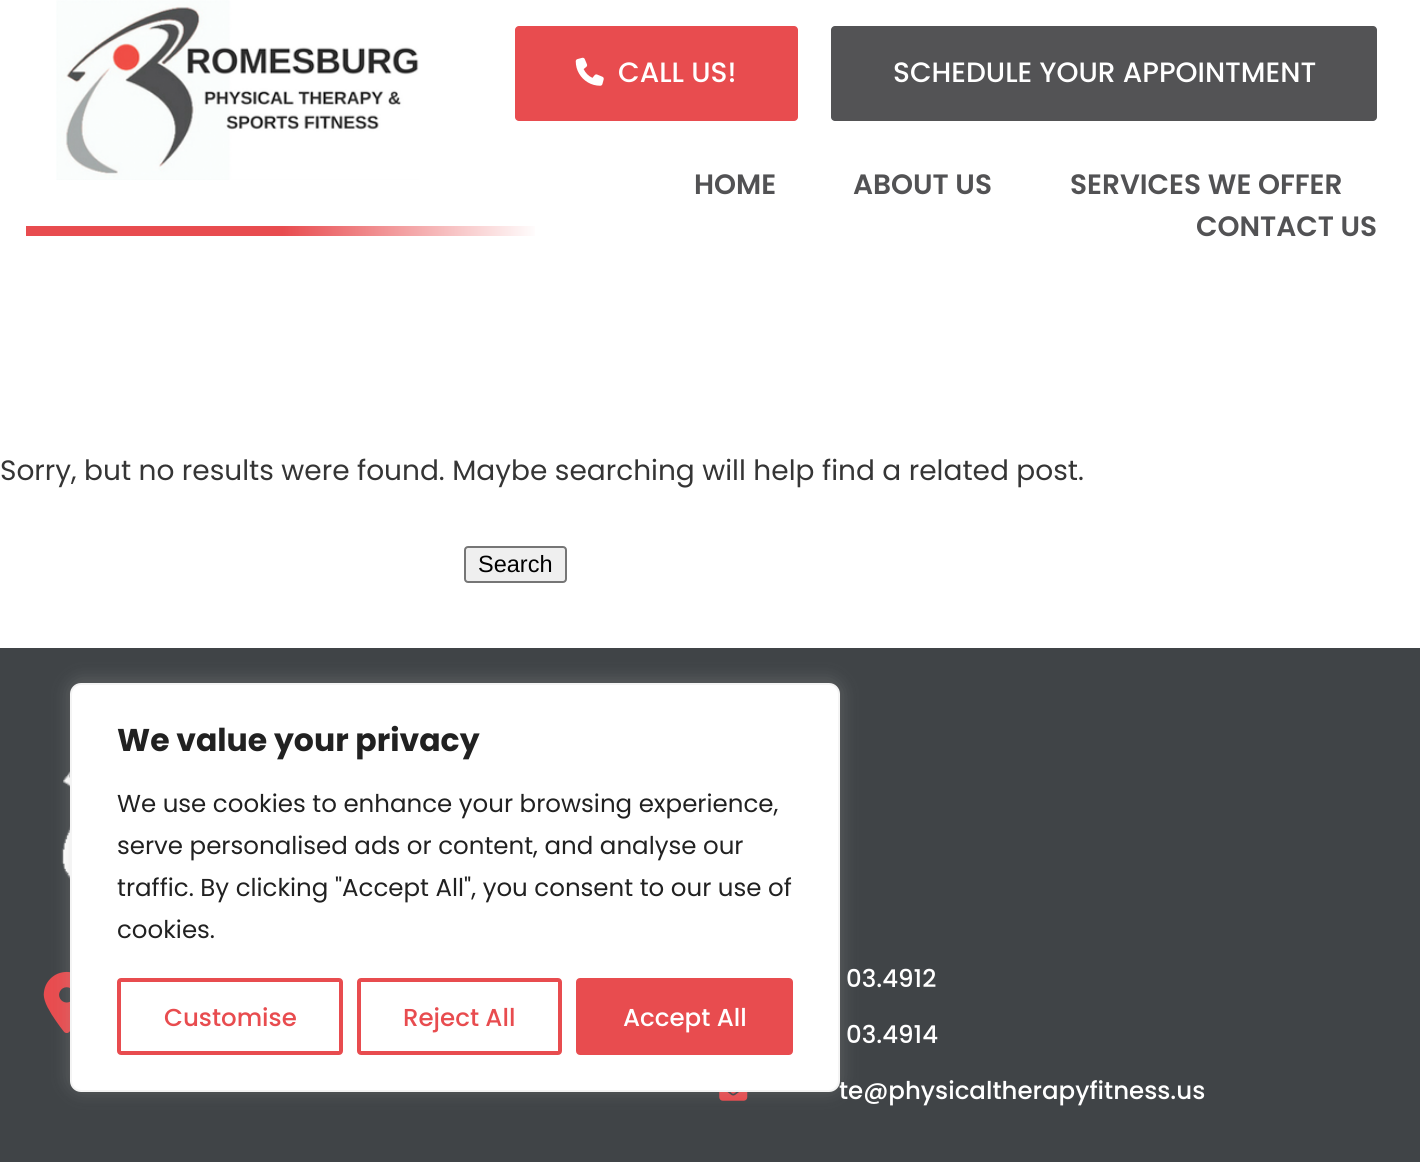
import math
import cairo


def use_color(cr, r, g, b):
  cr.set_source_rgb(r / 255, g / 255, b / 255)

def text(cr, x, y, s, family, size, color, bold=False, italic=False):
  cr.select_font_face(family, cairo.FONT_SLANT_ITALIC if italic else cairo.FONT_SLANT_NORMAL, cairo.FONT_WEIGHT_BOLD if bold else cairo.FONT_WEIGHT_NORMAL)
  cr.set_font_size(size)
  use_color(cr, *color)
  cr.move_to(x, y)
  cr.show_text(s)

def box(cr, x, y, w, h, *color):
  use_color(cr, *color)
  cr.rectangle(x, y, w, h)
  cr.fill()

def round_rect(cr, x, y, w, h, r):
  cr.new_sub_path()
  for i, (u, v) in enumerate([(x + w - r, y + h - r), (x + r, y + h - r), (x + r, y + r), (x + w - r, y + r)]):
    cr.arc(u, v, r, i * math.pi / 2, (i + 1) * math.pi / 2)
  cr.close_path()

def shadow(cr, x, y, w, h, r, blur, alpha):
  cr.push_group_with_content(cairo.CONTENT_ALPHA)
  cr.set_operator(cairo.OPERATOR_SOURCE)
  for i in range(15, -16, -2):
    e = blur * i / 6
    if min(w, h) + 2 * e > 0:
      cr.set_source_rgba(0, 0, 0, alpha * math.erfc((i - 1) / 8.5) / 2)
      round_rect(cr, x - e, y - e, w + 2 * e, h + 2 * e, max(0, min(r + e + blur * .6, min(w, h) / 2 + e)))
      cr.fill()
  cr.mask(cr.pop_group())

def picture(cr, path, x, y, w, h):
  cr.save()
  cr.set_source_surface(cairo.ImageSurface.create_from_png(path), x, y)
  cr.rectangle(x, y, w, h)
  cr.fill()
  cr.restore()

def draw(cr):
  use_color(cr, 255, 255, 255)
  cr.paint()
  gradient = cairo.LinearGradient(26, 231, 539, 231)
  gradient.add_color_stop_rgba(0, 0.91, 0.298, 0.31, 1)
  gradient.add_color_stop_rgba(0.5, 0.91, 0.298, 0.31, 1)
  gradient.add_color_stop_rgba(1, 1, 1, 1, 1)
  cr.set_source(gradient)
  cr.rectangle(26, 226, 509, 10)
  cr.fill()
  picture(cr, "img_01.png", 56, 0, 363, 180)
  use_color(cr, 232, 76, 79)
  round_rect(cr, 515, 26, 283, 95, 4)
  cr.fill()
  picture(cr, "img_02.png", 575, 57, 29, 29)
  use_color(cr, 83, 83, 85)
  round_rect(cr, 831, 26, 546, 95, 4)
  cr.fill()
  use_color(cr, 239, 239, 239)
  round_rect(cr, 465, 547, 101, 35, 3)
  cr.fill_preserve()
  use_color(cr, 118, 118, 118)
  cr.stroke()
  box(cr, 0, 648, 1420, 514, 64, 68, 71)
  picture(cr, "img_03.png", 61, 771, 9, 109)
  picture(cr, "img_04.png", 43, 971, 27, 62)
  picture(cr, "img_05.png", 719, 1092, 29, 9)
  use_color(cr, 172, 171, 171)
  shadow(cr, 70, 681, 770, 409, 11, 9, 0.3)
  use_color(cr, 255, 255, 255)
  round_rect(cr, 71, 684, 768, 407, 10)
  cr.fill_preserve()
  use_color(cr, 244, 244, 244)
  cr.stroke()
  round_rect(cr, 119, 980, 222, 73, 2)
  use_color(cr, 232, 76, 79)
  cr.set_line_width(4)
  cr.stroke()
  round_rect(cr, 359, 980, 201, 73, 2)
  cr.stroke()
  round_rect(cr, 578, 980, 213, 73, 2)
  cr.fill_preserve()
  cr.stroke()
  text(cr, 618, 82, "CALL US!", "Poppins Medium", 28, (255, 255, 255))
  text(cr, 893, 82, "SCHEDULE YOUR APPOINTMENT", "Poppins Medium", 28, (255, 255, 255))
  text(cr, 694, 194, "HOME", "Poppins SemiBold", 28, (82, 82, 84))
  text(cr, 853, 194, "ABOUT US", "Poppins SemiBold", 28, (82, 82, 84))
  text(cr, 1070, 194, "SERVICES WE OFFER", "Poppins SemiBold", 28, (82, 82, 84))
  text(cr, 1196, 236, "CONTACT US", "Poppins SemiBold", 28, (82, 82, 84))
  text(cr, 0, 480, "Sorry, but no results were found. Maybe searching will help find a related post.", "Poppins", 28, (53, 53, 53))
  text(cr, 478, 572, "Search", "Liberation Sans", 23.5, (0, 0, 0))
  text(cr, 846, 987, "03.4912", "Poppins Medium", 24.5, (255, 255, 255))
  text(cr, 846, 1043, "03.4914", "Poppins Medium", 24.5, (255, 255, 255))
  text(cr, 839, 1099, "te@physicaltherapyfitness.us", "Poppins Medium", 24.5, (255, 255, 255))
  text(cr, 117, 751, "We value your privacy", "Poppins", 31.5, (33, 33, 33), bold=True)
  text(cr, 117, 812, "We use cookies to enhance your browsing experience,", "Poppins", 24.5, (33, 33, 33))
  text(cr, 117, 854, "serve personalised ads or content, and analyse our", "Poppins", 24.5, (33, 33, 33))
  text(cr, 117, 896, "traffic. By clicking \"Accept All\", you consent to our use of", "Poppins", 24.5, (33, 33, 33))
  text(cr, 117, 938, "cookies.", "Poppins", 24.5, (33, 33, 33))
  text(cr, 164, 1026, "Customise", "Poppins Medium", 24.5, (232, 76, 79))
  text(cr, 403, 1026, "Reject All", "Poppins Medium", 24.5, (232, 76, 79))
  text(cr, 623, 1026, "Accept All", "Poppins Medium", 24.5, (255, 255, 255))


surface = cairo.ImageSurface(cairo.FORMAT_RGB24, 1420, 1162)
cr = cairo.Context(surface)
options = cairo.FontOptions()
options.set_hint_metrics(cairo.HINT_METRICS_OFF)
options.set_hint_style(cairo.HINT_STYLE_NONE)
cr.set_font_options(options)
cr.set_miter_limit(4)
draw(cr)
surface.write_to_png("out.png")
